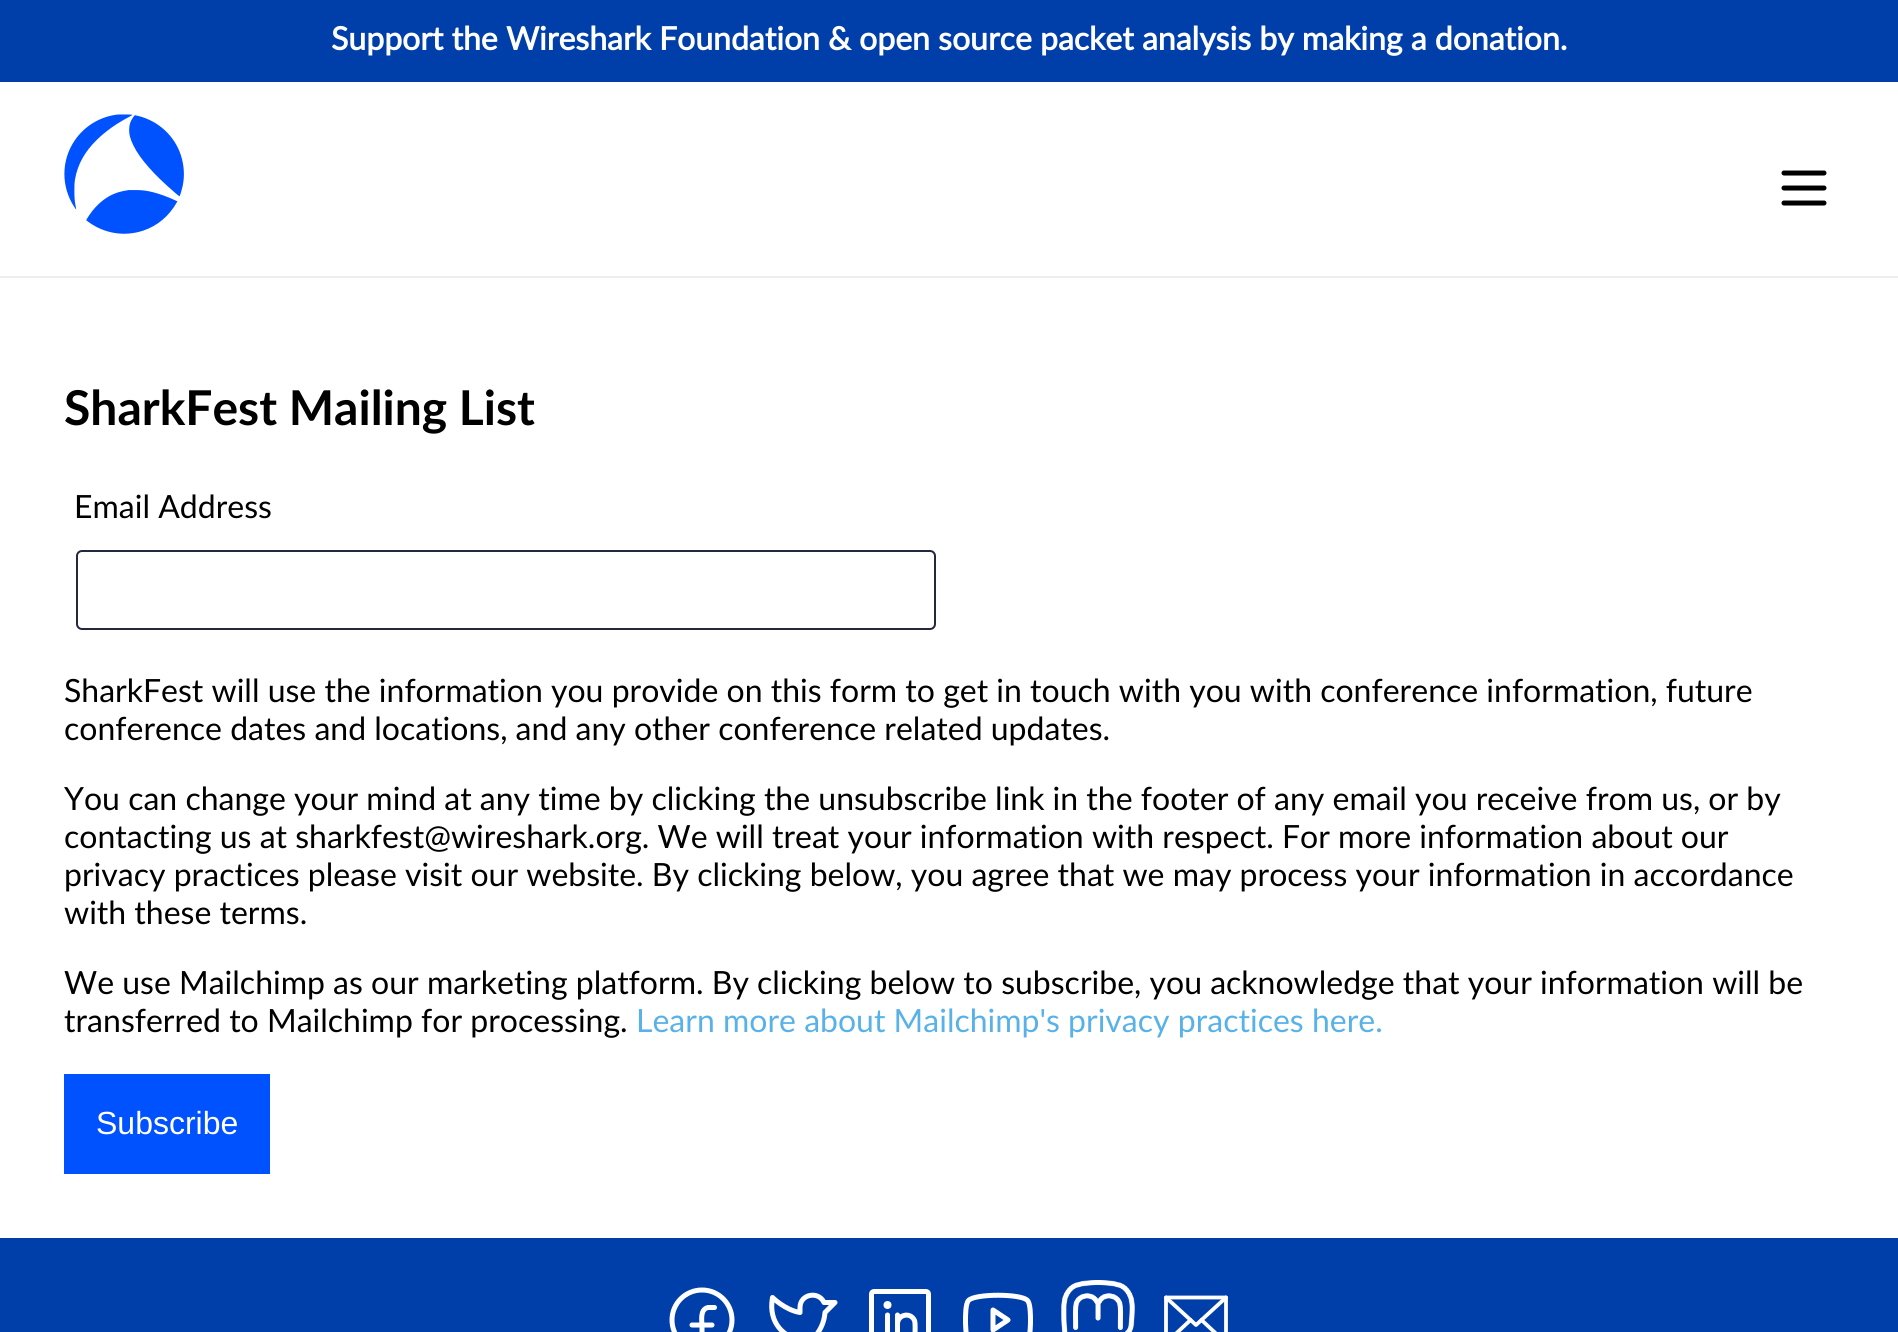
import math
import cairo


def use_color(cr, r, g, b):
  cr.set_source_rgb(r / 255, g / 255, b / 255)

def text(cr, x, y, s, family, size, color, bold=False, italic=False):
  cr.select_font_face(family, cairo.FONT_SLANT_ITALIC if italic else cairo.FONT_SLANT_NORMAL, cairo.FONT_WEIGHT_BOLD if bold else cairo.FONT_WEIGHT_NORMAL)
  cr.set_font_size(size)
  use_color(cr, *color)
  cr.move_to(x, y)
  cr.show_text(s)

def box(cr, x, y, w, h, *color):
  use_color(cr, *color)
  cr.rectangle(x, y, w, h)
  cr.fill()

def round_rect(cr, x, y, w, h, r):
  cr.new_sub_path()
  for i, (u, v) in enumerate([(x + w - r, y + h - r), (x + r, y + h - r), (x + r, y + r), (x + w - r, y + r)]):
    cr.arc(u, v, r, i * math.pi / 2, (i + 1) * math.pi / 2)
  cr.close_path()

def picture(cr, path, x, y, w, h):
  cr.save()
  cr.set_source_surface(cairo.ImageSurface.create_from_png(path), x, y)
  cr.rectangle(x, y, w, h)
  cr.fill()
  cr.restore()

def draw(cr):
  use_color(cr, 255, 255, 255)
  cr.paint()
  box(cr, 0, 0, 1898, 82, 0, 62, 170)
  box(cr, 0, 276, 1898, 2, 236, 239, 241)
  picture(cr, "img_01.png", 64, 114, 120, 120)
  cr.new_path()
  cr.move_to(1784, 173)
  cr.line_to(1824, 173)
  cr.move_to(1784, 188)
  cr.line_to(1824, 188)
  cr.move_to(1784, 203)
  cr.line_to(1824, 203)
  use_color(cr, 0, 0, 0)
  cr.set_line_width(5)
  cr.set_line_cap(cairo.LINE_CAP_ROUND)
  cr.set_line_join(cairo.LINE_JOIN_ROUND)
  cr.stroke()
  round_rect(cr, 77, 551, 858, 78, 5)
  use_color(cr, 36, 40, 61)
  cr.set_line_width(2)
  cr.set_line_cap(cairo.LINE_CAP_BUTT)
  cr.set_line_join(cairo.LINE_JOIN_MITER)
  cr.stroke()
  box(cr, 64, 1074, 206, 100, 0, 81, 255)
  box(cr, 0, 1238, 1898, 94, 0, 62, 170)
  cr.arc(702, 1320, 30, 0, 2 * math.pi)
  use_color(cr, 255, 255, 255)
  cr.set_line_width(5)
  cr.stroke()
  cr.new_path()
  cr.move_to(714.5, 1307.5)
  cr.line_to(708, 1307.5)
  cr.curve_to(699.5, 1309.5, 702, 1321, 702, 1326.5)
  cr.line_to(702, 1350)
  cr.move_to(692, 1325)
  cr.line_to(712, 1325)
  cr.set_line_cap(cairo.LINE_CAP_ROUND)
  cr.set_line_join(cairo.LINE_JOIN_ROUND)
  cr.stroke()
  cr.new_path()
  cr.move_to(800, 1307.5)
  cr.curve_to(800, 1294, 818.5, 1290.5, 824, 1302.5)
  cr.line_to(835, 1302.5)
  cr.line_to(825, 1312.5)
  cr.curve_to(823.5, 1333.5, 806, 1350, 785, 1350)
  cr.curve_to(775, 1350, 772.5, 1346, 772.5, 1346)
  cr.curve_to(772.5, 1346, 782.5, 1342.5, 787.5, 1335)
  cr.curve_to(787.5, 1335, 767.5, 1325, 772.5, 1297.5)
  cr.curve_to(772.5, 1297.5, 785, 1310, 800, 1312.5)
  cr.close_path()
  cr.stroke()
  round_rect(cr, 871.5, 1291.5, 57, 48, 2.5)
  cr.set_line_cap(cairo.LINE_CAP_BUTT)
  cr.set_line_join(cairo.LINE_JOIN_MITER)
  cr.stroke()
  cr.arc(887.5, 1305, 4, 0, 2 * math.pi)
  cr.fill()
  cr.new_path()
  cr.move_to(897.5, 1315)
  cr.line_to(897.5, 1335)
  cr.move_to(887.5, 1315)
  cr.line_to(887.5, 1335)
  cr.move_to(897.5, 1324)
  cr.curve_to(897.5, 1314.5, 910.5, 1311.5, 914.5, 1320.5)
  cr.curve_to(915.5, 1323.5, 915, 1331, 915, 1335)
  cr.set_line_cap(cairo.LINE_CAP_ROUND)
  cr.set_line_join(cairo.LINE_JOIN_ROUND)
  cr.stroke()
  cr.new_path()
  cr.move_to(1008, 1320)
  cr.line_to(993, 1310)
  cr.line_to(993, 1330)
  cr.close_path()
  cr.stroke()
  cr.new_path()
  cr.move_to(965.5, 1320)
  cr.curve_to(965.5, 1324, 965.5, 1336.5, 968.5, 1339.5)
  cr.curve_to(974.5, 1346.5, 1021.5, 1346.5, 1027.5, 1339.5)
  cr.curve_to(1030.5, 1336.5, 1030.5, 1324, 1030.5, 1320)
  cr.curve_to(1030.5, 1316, 1030.5, 1303.5, 1027.5, 1300.5)
  cr.curve_to(1021.5, 1293.5, 974.5, 1293.5, 968.5, 1300.5)
  cr.curve_to(965.5, 1303.5, 965.5, 1316, 965.5, 1320)
  cr.close_path()
  cr.stroke()
  picture(cr, "img_02.png", 1061, 1280, 74, 52)
  cr.new_path()
  cr.move_to(1226, 1297.5)
  cr.line_to(1196, 1325)
  cr.line_to(1166, 1297.5)
  cr.set_line_width(3.8)
  cr.stroke()
  cr.new_path()
  cr.move_to(1166, 1297.5)
  cr.line_to(1226, 1297.5)
  cr.line_to(1226, 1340)
  cr.curve_to(1226, 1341.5, 1225, 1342.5, 1223.5, 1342.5)
  cr.line_to(1168.5, 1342.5)
  cr.curve_to(1167, 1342.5, 1166, 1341.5, 1166, 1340)
  cr.close_path()
  cr.stroke()
  cr.new_path()
  cr.move_to(1190.5, 1320)
  cr.line_to(1167, 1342)
  cr.move_to(1225, 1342)
  cr.line_to(1201.5, 1320)
  cr.stroke()
  text(cr, 331, 50, "Support the Wireshark Foundation & open source packet analysis by making a donation.", "Lato", 32, (255, 255, 255), bold=True)
  text(cr, 64, 425, "SharkFest Mailing List", "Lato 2", 48, (0, 0, 0), bold=True)
  text(cr, 74, 518, "Email Address", "Lato", 32, (0, 0, 0))
  text(cr, 64, 702, "SharkFest will use the information you provide on this form to get in touch with you with conference information, future", "Lato", 32, (0, 0, 0))
  text(cr, 64, 740, "conference dates and locations, and any other conference related updates.", "Lato", 32, (0, 0, 0))
  text(cr, 64, 810, "You can change your mind at any time by clicking the unsubscribe link in the footer of any email you receive from us, or by", "Lato", 32, (0, 0, 0))
  text(cr, 64, 848, "contacting us at sharkfest@wireshark.org. We will treat your information with respect. For more information about our", "Lato", 32, (0, 0, 0))
  text(cr, 64, 886, "privacy practices please visit our website. By clicking below, you agree that we may process your information in accordance", "Lato", 32, (0, 0, 0))
  text(cr, 64, 924, "with these terms.", "Lato", 32, (0, 0, 0))
  text(cr, 64, 994, "We use Mailchimp as our marketing platform. By clicking below to subscribe, you acknowledge that your information will be", "Lato", 32, (0, 0, 0))
  text(cr, 64, 1032, "transferred to Mailchimp for processing.", "Lato", 32, (0, 0, 0))
  text(cr, 636, 1032, "Learn more about Mailchimp's privacy practices here.", "Lato", 32, (88, 178, 232))
  text(cr, 96, 1134, "Subscribe", "Liberation Sans", 32, (255, 255, 255))


surface = cairo.ImageSurface(cairo.FORMAT_RGB24, 1898, 1332)
cr = cairo.Context(surface)
options = cairo.FontOptions()
options.set_hint_metrics(cairo.HINT_METRICS_OFF)
options.set_hint_style(cairo.HINT_STYLE_NONE)
cr.set_font_options(options)
cr.set_miter_limit(4)
draw(cr)
surface.write_to_png("out.png")
